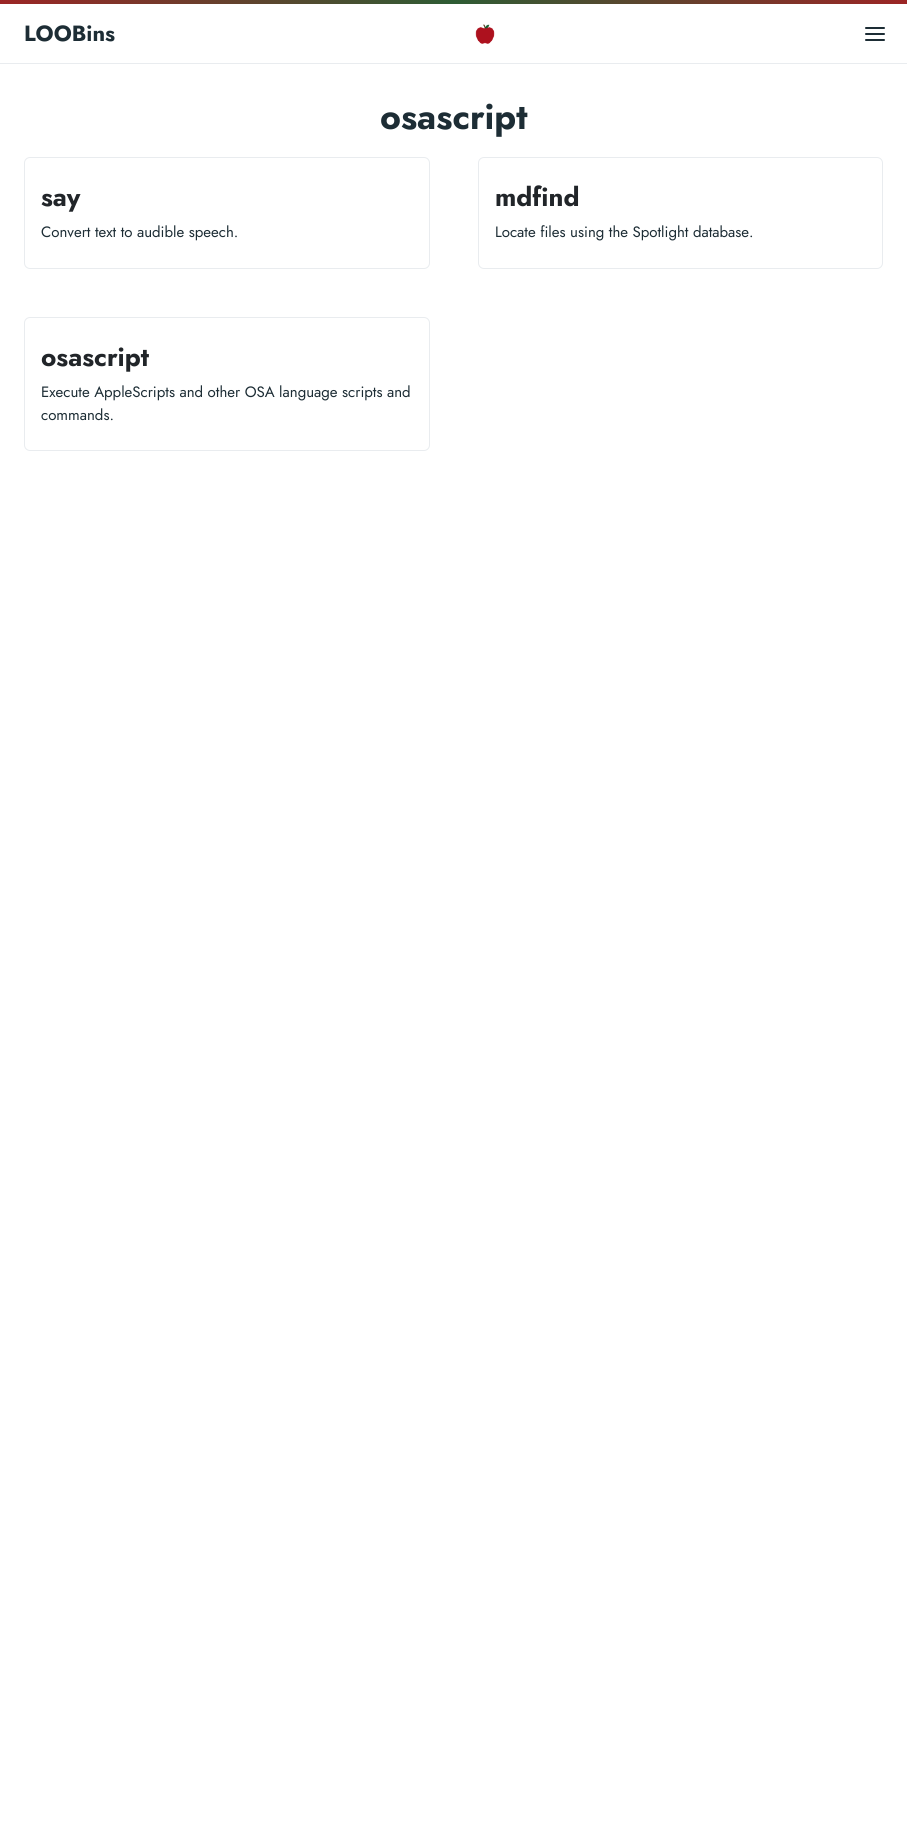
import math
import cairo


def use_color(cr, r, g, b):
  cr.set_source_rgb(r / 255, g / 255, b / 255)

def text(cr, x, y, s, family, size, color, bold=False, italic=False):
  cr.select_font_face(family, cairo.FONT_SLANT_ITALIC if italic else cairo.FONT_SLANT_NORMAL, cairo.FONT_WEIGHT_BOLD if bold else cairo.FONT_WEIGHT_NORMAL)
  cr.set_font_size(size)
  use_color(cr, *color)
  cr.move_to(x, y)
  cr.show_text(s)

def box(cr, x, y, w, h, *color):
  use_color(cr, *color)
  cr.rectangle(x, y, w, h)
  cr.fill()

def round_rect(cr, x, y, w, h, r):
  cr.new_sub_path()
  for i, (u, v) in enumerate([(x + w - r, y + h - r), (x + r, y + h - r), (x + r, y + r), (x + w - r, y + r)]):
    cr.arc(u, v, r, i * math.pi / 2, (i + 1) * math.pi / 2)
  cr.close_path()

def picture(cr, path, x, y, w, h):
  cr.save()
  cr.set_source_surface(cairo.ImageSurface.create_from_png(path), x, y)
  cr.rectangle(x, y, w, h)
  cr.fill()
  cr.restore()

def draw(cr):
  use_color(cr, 255, 255, 255)
  cr.paint()
  picture(cr, "img_01.png", 0, 0, 907, 4)
  box(cr, 0, 63, 907, 1, 233, 236, 239)
  picture(cr, "img_02.png", 475, 24, 20, 20)
  cr.new_path()
  cr.move_to(866, 34)
  cr.line_to(884, 34)
  cr.move_to(866, 28)
  cr.line_to(884, 28)
  cr.move_to(866, 40)
  cr.line_to(884, 40)
  use_color(cr, 29, 45, 53)
  cr.set_line_cap(cairo.LINE_CAP_ROUND)
  cr.set_line_join(cairo.LINE_JOIN_ROUND)
  cr.stroke()
  round_rect(cr, 24.5, 157.5, 405, 111, 5.5)
  use_color(cr, 233, 236, 239)
  cr.set_line_width(1)
  cr.set_line_cap(cairo.LINE_CAP_BUTT)
  cr.set_line_join(cairo.LINE_JOIN_MITER)
  cr.stroke()
  round_rect(cr, 478.5, 157.5, 404, 111, 5.5)
  cr.stroke()
  round_rect(cr, 24.5, 317.5, 405, 133, 5.5)
  cr.stroke()
  text(cr, 24, 41, "LOOBins", "Jost", 22, (29, 45, 53), bold=True)
  text(cr, 380, 129, "osascript", "Jost", 35.5, (29, 45, 53), bold=True)
  text(cr, 41, 206, "say", "Jost", 26, (33, 37, 41), bold=True)
  text(cr, 41, 237, "Convert text to audible speech.", "Jost", 15, (29, 45, 53))
  text(cr, 495, 206, "mdfind", "Jost", 26, (33, 37, 41), bold=True)
  text(cr, 495, 237, "Locate files using the Spotlight database.", "Jost", 15, (29, 45, 53))
  text(cr, 41, 366, "osascript", "Jost", 26, (33, 37, 41), bold=True)
  text(cr, 41, 397, "Execute AppleScripts and other OSA language scripts and", "Jost", 15, (29, 45, 53))
  text(cr, 41, 420, "commands.", "Jost", 15, (29, 45, 53))


surface = cairo.ImageSurface(cairo.FORMAT_RGB24, 907, 1825)
cr = cairo.Context(surface)
options = cairo.FontOptions()
options.set_hint_metrics(cairo.HINT_METRICS_OFF)
options.set_hint_style(cairo.HINT_STYLE_NONE)
cr.set_font_options(options)
cr.set_miter_limit(4)
draw(cr)
surface.write_to_png("out.png")
